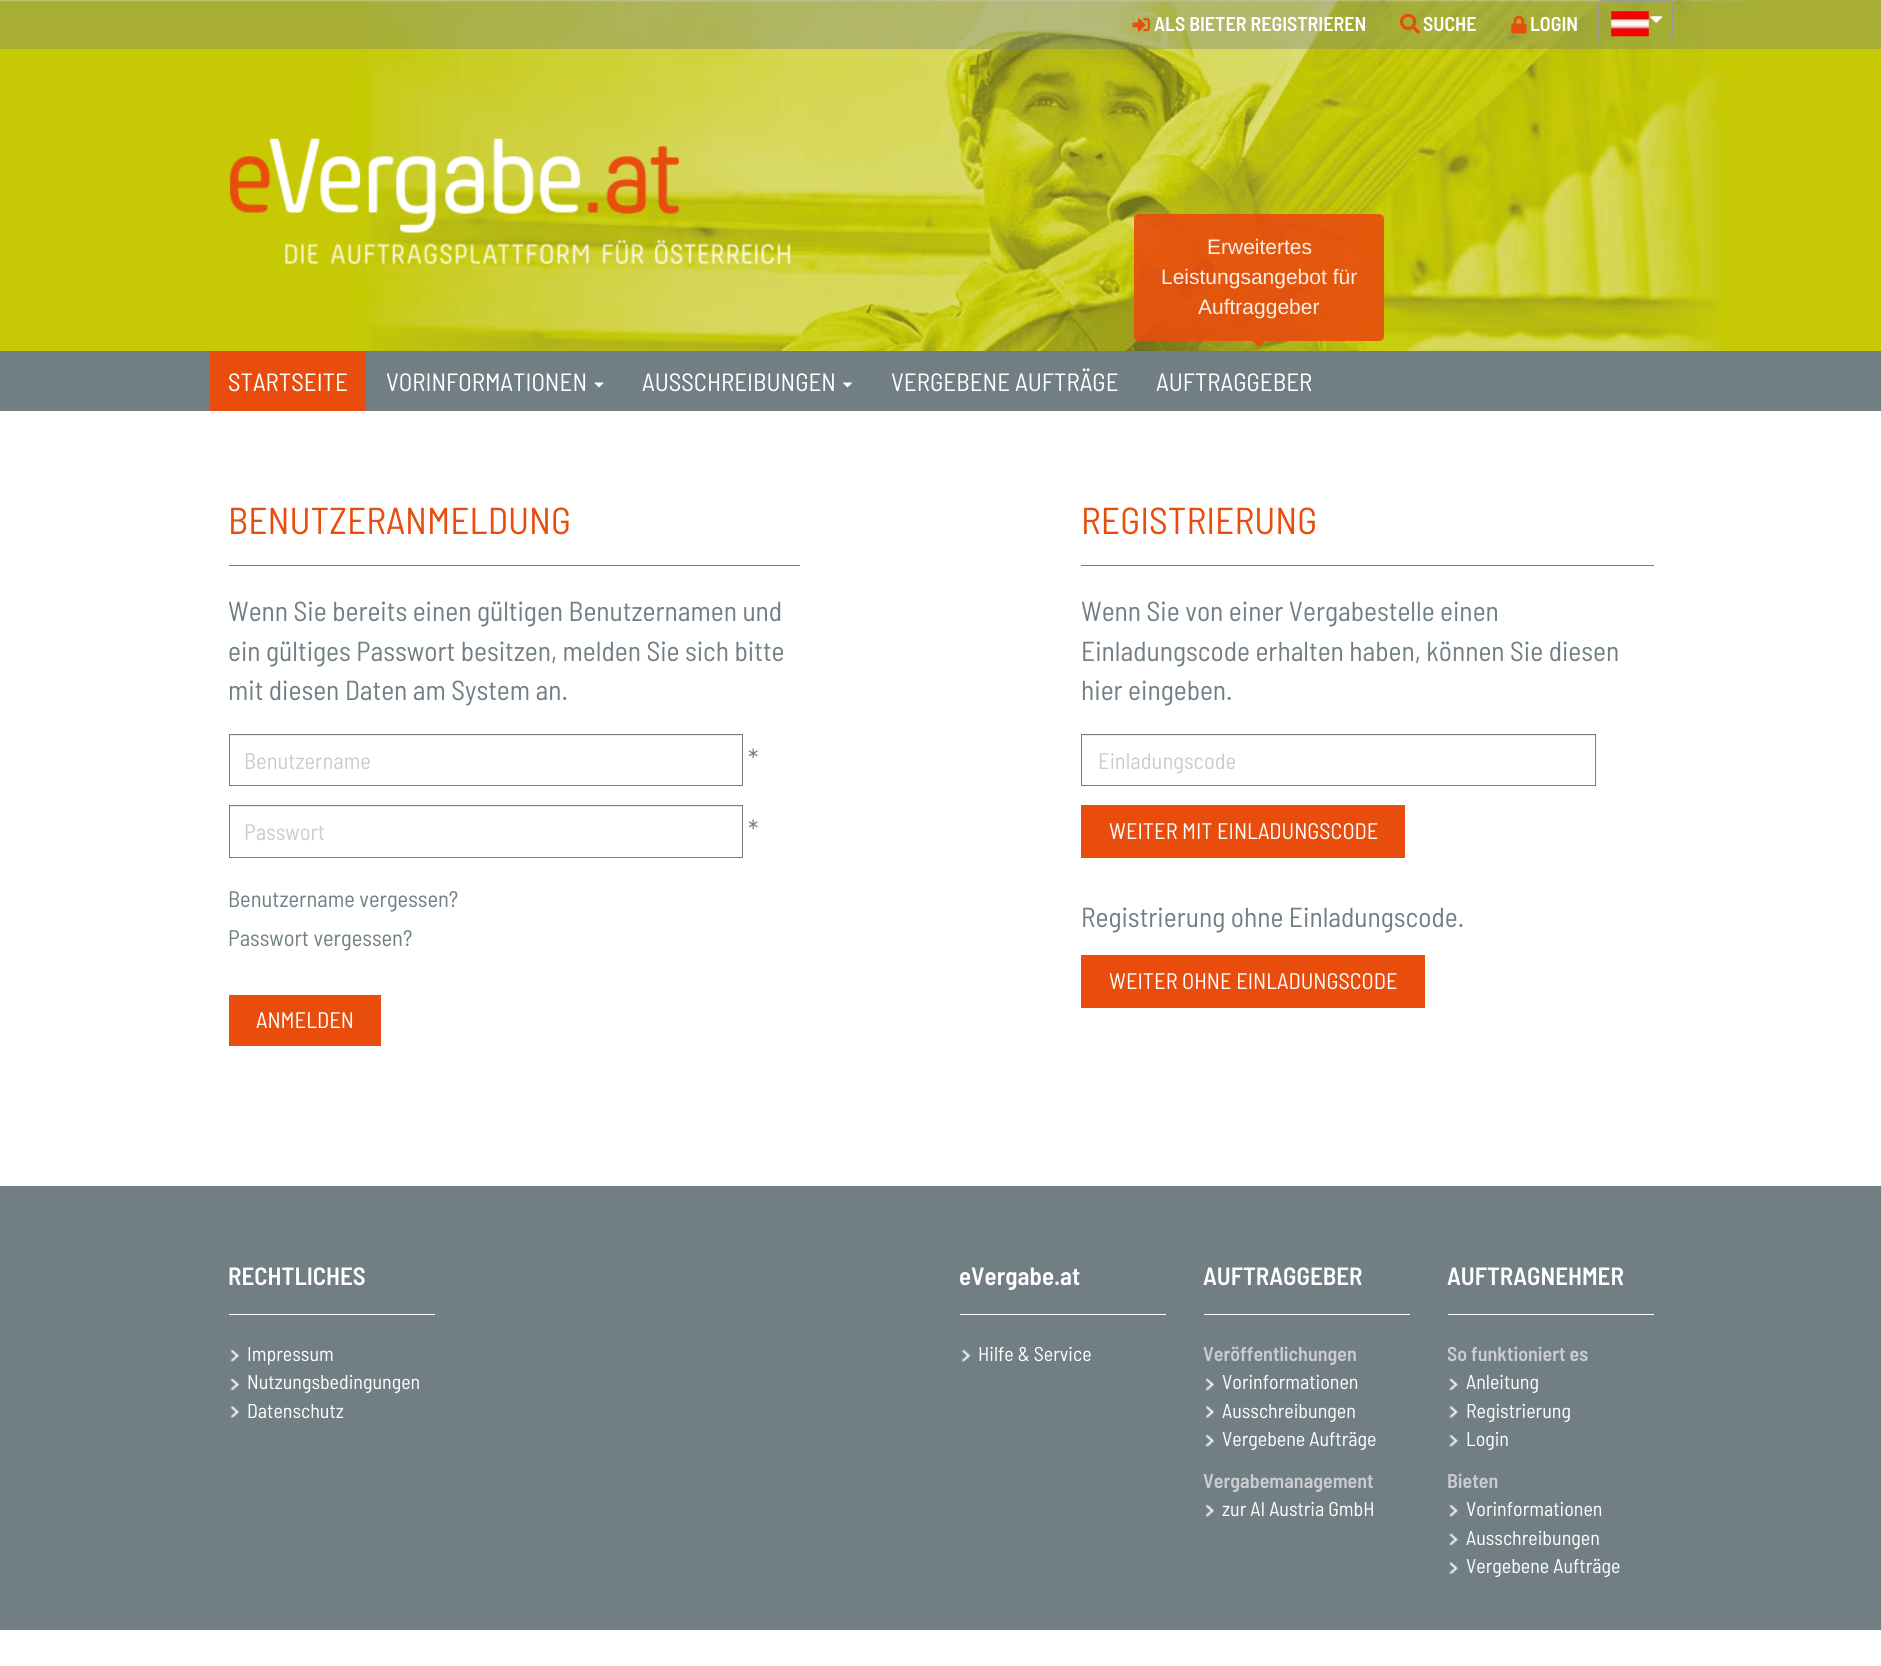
import math
import cairo


def use_color(cr, r, g, b):
  cr.set_source_rgb(r / 255, g / 255, b / 255)

def text(cr, x, y, s, family, size, color, bold=False, italic=False):
  cr.select_font_face(family, cairo.FONT_SLANT_ITALIC if italic else cairo.FONT_SLANT_NORMAL, cairo.FONT_WEIGHT_BOLD if bold else cairo.FONT_WEIGHT_NORMAL)
  cr.set_font_size(size)
  use_color(cr, *color)
  cr.move_to(x, y)
  cr.show_text(s)

def box(cr, x, y, w, h, *color):
  use_color(cr, *color)
  cr.rectangle(x, y, w, h)
  cr.fill()

def round_rect(cr, x, y, w, h, r):
  cr.new_sub_path()
  for i, (u, v) in enumerate([(x + w - r, y + h - r), (x + r, y + h - r), (x + r, y + r), (x + w - r, y + r)]):
    cr.arc(u, v, r, i * math.pi / 2, (i + 1) * math.pi / 2)
  cr.close_path()

def picture(cr, path, x, y, w, h):
  cr.save()
  cr.set_source_surface(cairo.ImageSurface.create_from_png(path), x, y)
  cr.rectangle(x, y, w, h)
  cr.fill()
  cr.restore()

def draw(cr):
  use_color(cr, 255, 255, 255)
  cr.paint()
  picture(cr, "img_01.png", 0, 0, 1881, 351)
  cr.set_source_rgba(0.447, 0.502, 0.522, 0.37)
  cr.rectangle(0, 0, 1881, 49)
  cr.fill()
  picture(cr, "img_02.png", 1132, 18, 18, 14)
  picture(cr, "img_03.png", 1400, 13, 20, 21)
  picture(cr, "img_04.png", 1511, 16, 16, 18)
  round_rect(cr, 1598.5, 0.5, 74, 43, 3.5)
  use_color(cr, 153, 153, 153)
  cr.set_line_width(1)
  cr.stroke()
  picture(cr, "img_05.png", 1611, 11, 38, 26)
  picture(cr, "img_06.png", 1650, 16, 12, 7)
  picture(cr, "img_07.png", 229, 138, 562, 126)
  box(cr, 0, 351, 1881, 60, 113, 127, 133)
  box(cr, 210, 351, 156, 60, 232, 77, 14)
  use_color(cr, 255, 255, 255)
  cr.new_path()
  cr.move_to(594, 382.5)
  cr.line_to(604, 382.5)
  cr.line_to(599, 387.5)
  cr.close_path()
  cr.fill()
  cr.new_path()
  cr.move_to(842.5, 382.5)
  cr.line_to(852.5, 382.5)
  cr.line_to(847.5, 387.5)
  cr.close_path()
  cr.fill()
  cr.set_source_rgba(0.91, 0.302, 0.055, 0.9)
  round_rect(cr, 1134, 214, 250, 127, 5)
  cr.fill()
  cr.new_path()
  cr.move_to(1252.5, 341)
  cr.line_to(1265, 341)
  cr.line_to(1259, 347.5)
  cr.close_path()
  cr.fill()
  box(cr, 229, 565, 571, 1, 113, 127, 133)
  box(cr, 230, 735, 511, 1, 236, 236, 236)
  cr.rectangle(229.5, 734.5, 513, 51)
  use_color(cr, 113, 127, 133)
  cr.stroke()
  box(cr, 230, 806, 511, 1, 236, 236, 236)
  cr.rectangle(229.5, 805.5, 513, 52)
  use_color(cr, 113, 127, 133)
  cr.stroke()
  box(cr, 229, 995, 152, 51, 232, 77, 14)
  box(cr, 1081, 565, 573, 1, 113, 127, 133)
  box(cr, 1083, 735, 512, 1, 236, 236, 236)
  cr.rectangle(1081.5, 734.5, 514, 51)
  use_color(cr, 113, 127, 133)
  cr.stroke()
  box(cr, 1081, 805, 324, 53, 232, 77, 14)
  box(cr, 1081, 955, 344, 53, 232, 77, 14)
  box(cr, 0, 1186, 1881, 444, 113, 127, 133)
  box(cr, 229, 1314, 206, 1, 255, 255, 255)
  picture(cr, "img_08.png", 230, 1349, 9, 13)
  picture(cr, "img_09.png", 230, 1378, 9, 13)
  picture(cr, "img_10.png", 230, 1406, 9, 12)
  box(cr, 960, 1314, 206, 1, 255, 255, 255)
  picture(cr, "img_11.png", 961, 1349, 10, 13)
  box(cr, 1204, 1314, 206, 1, 255, 255, 255)
  picture(cr, "img_09.png", 1205, 1378, 9, 13)
  picture(cr, "img_10.png", 1205, 1406, 9, 12)
  picture(cr, "img_08.png", 1205, 1434, 9, 13)
  picture(cr, "img_08.png", 1205, 1504, 9, 13)
  box(cr, 1448, 1314, 206, 1, 255, 255, 255)
  picture(cr, "img_12.png", 1448, 1378, 10, 13)
  picture(cr, "img_13.png", 1448, 1406, 10, 12)
  picture(cr, "img_14.png", 1448, 1434, 10, 13)
  picture(cr, "img_14.png", 1448, 1504, 10, 13)
  picture(cr, "img_12.png", 1448, 1533, 10, 13)
  picture(cr, "img_15.png", 1448, 1562, 10, 12)
  text(cr, 1154, 31, "ALS BIETER REGISTRIEREN", "Barlow Semi Condensed SemiBold", 20, (255, 255, 255))
  text(cr, 1423, 31, "SUCHE", "Barlow Semi Condensed SemiBold", 20, (255, 255, 255))
  text(cr, 1530, 31, "LOGIN", "Barlow Semi Condensed SemiBold", 20, (255, 255, 255))
  text(cr, 228, 391, "STARTSEITE", "Barlow Semi Condensed", 25, (255, 255, 255))
  text(cr, 386, 391, "VORINFORMATIONEN", "Barlow Semi Condensed", 25, (255, 255, 255))
  text(cr, 642, 391, "AUSSCHREIBUNGEN", "Barlow Semi Condensed", 25, (255, 255, 255))
  text(cr, 891, 391, "VERGEBENE AUFTRÄGE", "Barlow Semi Condensed", 25, (255, 255, 255))
  text(cr, 1207, 254, "Erweitertes", "Liberation Sans", 21, (252, 238, 231))
  text(cr, 1161, 284, "Leistungsangebot für", "Liberation Sans", 21, (252, 238, 231))
  text(cr, 1198, 314, "Auftraggeber", "Liberation Sans", 21, (252, 238, 231))
  text(cr, 1156, 391, "AUFTRAGGEBER", "Barlow Semi Condensed", 25, (255, 255, 255))
  text(cr, 228, 534, "BENUTZERANMELDUNG", "Barlow Semi Condensed", 37.5, (232, 77, 14))
  text(cr, 228, 621, "Wenn Sie bereits einen gültigen Benutzernamen und", "Barlow Semi Condensed", 27.5, (113, 127, 133))
  text(cr, 228, 661, "ein gültiges Passwort besitzen, melden Sie sich bitte", "Barlow Semi Condensed", 27.5, (113, 127, 133))
  text(cr, 228, 700, "mit diesen Daten am System an.", "Barlow Semi Condensed", 27.5, (113, 127, 133))
  text(cr, 244, 769, "Benutzername", "Barlow Semi Condensed", 22.5, (203, 204, 208))
  text(cr, 748, 769, "*", "Barlow Semi Condensed", 27.5, (113, 127, 133))
  text(cr, 244, 840, "Passwort", "Barlow Semi Condensed", 22.5, (203, 204, 208))
  text(cr, 748, 840, "*", "Barlow Semi Condensed", 27.5, (113, 127, 133))
  text(cr, 228, 907, "Benutzername vergessen?", "Barlow Semi Condensed", 22.5, (113, 127, 133))
  text(cr, 228, 946, "Passwort vergessen?", "Barlow Semi Condensed", 22.5, (113, 127, 133))
  text(cr, 256, 1028, "ANMELDEN", "Barlow Semi Condensed", 22.5, (255, 255, 255))
  text(cr, 1081, 534, "REGISTRIERUNG", "Barlow Semi Condensed", 37.5, (232, 77, 14))
  text(cr, 1081, 621, "Wenn Sie von einer Vergabestelle einen", "Barlow Semi Condensed", 27.5, (113, 127, 133))
  text(cr, 1081, 661, "Einladungscode erhalten haben, können Sie diesen", "Barlow Semi Condensed", 27.5, (113, 127, 133))
  text(cr, 1081, 700, "hier eingeben.", "Barlow Semi Condensed", 27.5, (113, 127, 133))
  text(cr, 1098, 769, "Einladungscode", "Barlow Semi Condensed", 22.5, (203, 204, 208))
  text(cr, 1109, 839, "WEITER MIT EINLADUNGSCODE", "Barlow Semi Condensed", 22.5, (255, 255, 255))
  text(cr, 1081, 927, "Registrierung ohne Einladungscode.", "Barlow Semi Condensed", 27.5, (113, 127, 133))
  text(cr, 1109, 989, "WEITER OHNE EINLADUNGSCODE", "Barlow Semi Condensed", 22.5, (255, 255, 255))
  text(cr, 228, 1285, "RECHTLICHES", "Barlow Semi Condensed SemiBold", 25, (255, 255, 255))
  text(cr, 247, 1361, "Impressum", "Barlow Semi Condensed", 20, (255, 255, 255))
  text(cr, 247, 1389, "Nutzungsbedingungen", "Barlow Semi Condensed", 20, (255, 255, 255))
  text(cr, 247, 1418, "Datenschutz", "Barlow Semi Condensed", 20, (255, 255, 255))
  text(cr, 959, 1285, "eVergabe.at", "Barlow Semi Condensed SemiBold", 25, (255, 255, 255))
  text(cr, 978, 1361, "Hilfe & Service", "Barlow Semi Condensed", 20, (255, 255, 255))
  text(cr, 1203, 1285, "AUFTRAGGEBER", "Barlow Semi Condensed SemiBold", 25, (255, 255, 255))
  text(cr, 1203, 1361, "Veröffentlichungen", "Barlow Semi Condensed SemiBold", 20, (203, 204, 208))
  text(cr, 1222, 1389, "Vorinformationen", "Barlow Semi Condensed", 20, (255, 255, 255))
  text(cr, 1222, 1418, "Ausschreibungen", "Barlow Semi Condensed", 20, (255, 255, 255))
  text(cr, 1222, 1446, "Vergebene Aufträge", "Barlow Semi Condensed", 20, (255, 255, 255))
  text(cr, 1203, 1488, "Vergabemanagement", "Barlow Semi Condensed SemiBold", 20, (203, 204, 208))
  text(cr, 1222, 1516, "zur AI Austria GmbH", "Barlow Semi Condensed", 20, (255, 255, 255))
  text(cr, 1447, 1285, "AUFTRAGNEHMER", "Barlow Semi Condensed SemiBold", 25, (255, 255, 255))
  text(cr, 1447, 1361, "So funktioniert es", "Barlow Semi Condensed SemiBold", 20, (203, 204, 208))
  text(cr, 1466, 1389, "Anleitung", "Barlow Semi Condensed", 20, (255, 255, 255))
  text(cr, 1466, 1418, "Registrierung", "Barlow Semi Condensed", 20, (255, 255, 255))
  text(cr, 1466, 1446, "Login", "Barlow Semi Condensed", 20, (255, 255, 255))
  text(cr, 1447, 1488, "Bieten", "Barlow Semi Condensed SemiBold", 20, (203, 204, 208))
  text(cr, 1466, 1516, "Vorinformationen", "Barlow Semi Condensed", 20, (255, 255, 255))
  text(cr, 1466, 1545, "Ausschreibungen", "Barlow Semi Condensed", 20, (255, 255, 255))
  text(cr, 1466, 1573, "Vergebene Aufträge", "Barlow Semi Condensed", 20, (255, 255, 255))


surface = cairo.ImageSurface(cairo.FORMAT_RGB24, 1881, 1666)
cr = cairo.Context(surface)
options = cairo.FontOptions()
options.set_hint_metrics(cairo.HINT_METRICS_OFF)
options.set_hint_style(cairo.HINT_STYLE_NONE)
cr.set_font_options(options)
cr.set_miter_limit(4)
draw(cr)
surface.write_to_png("out.png")
